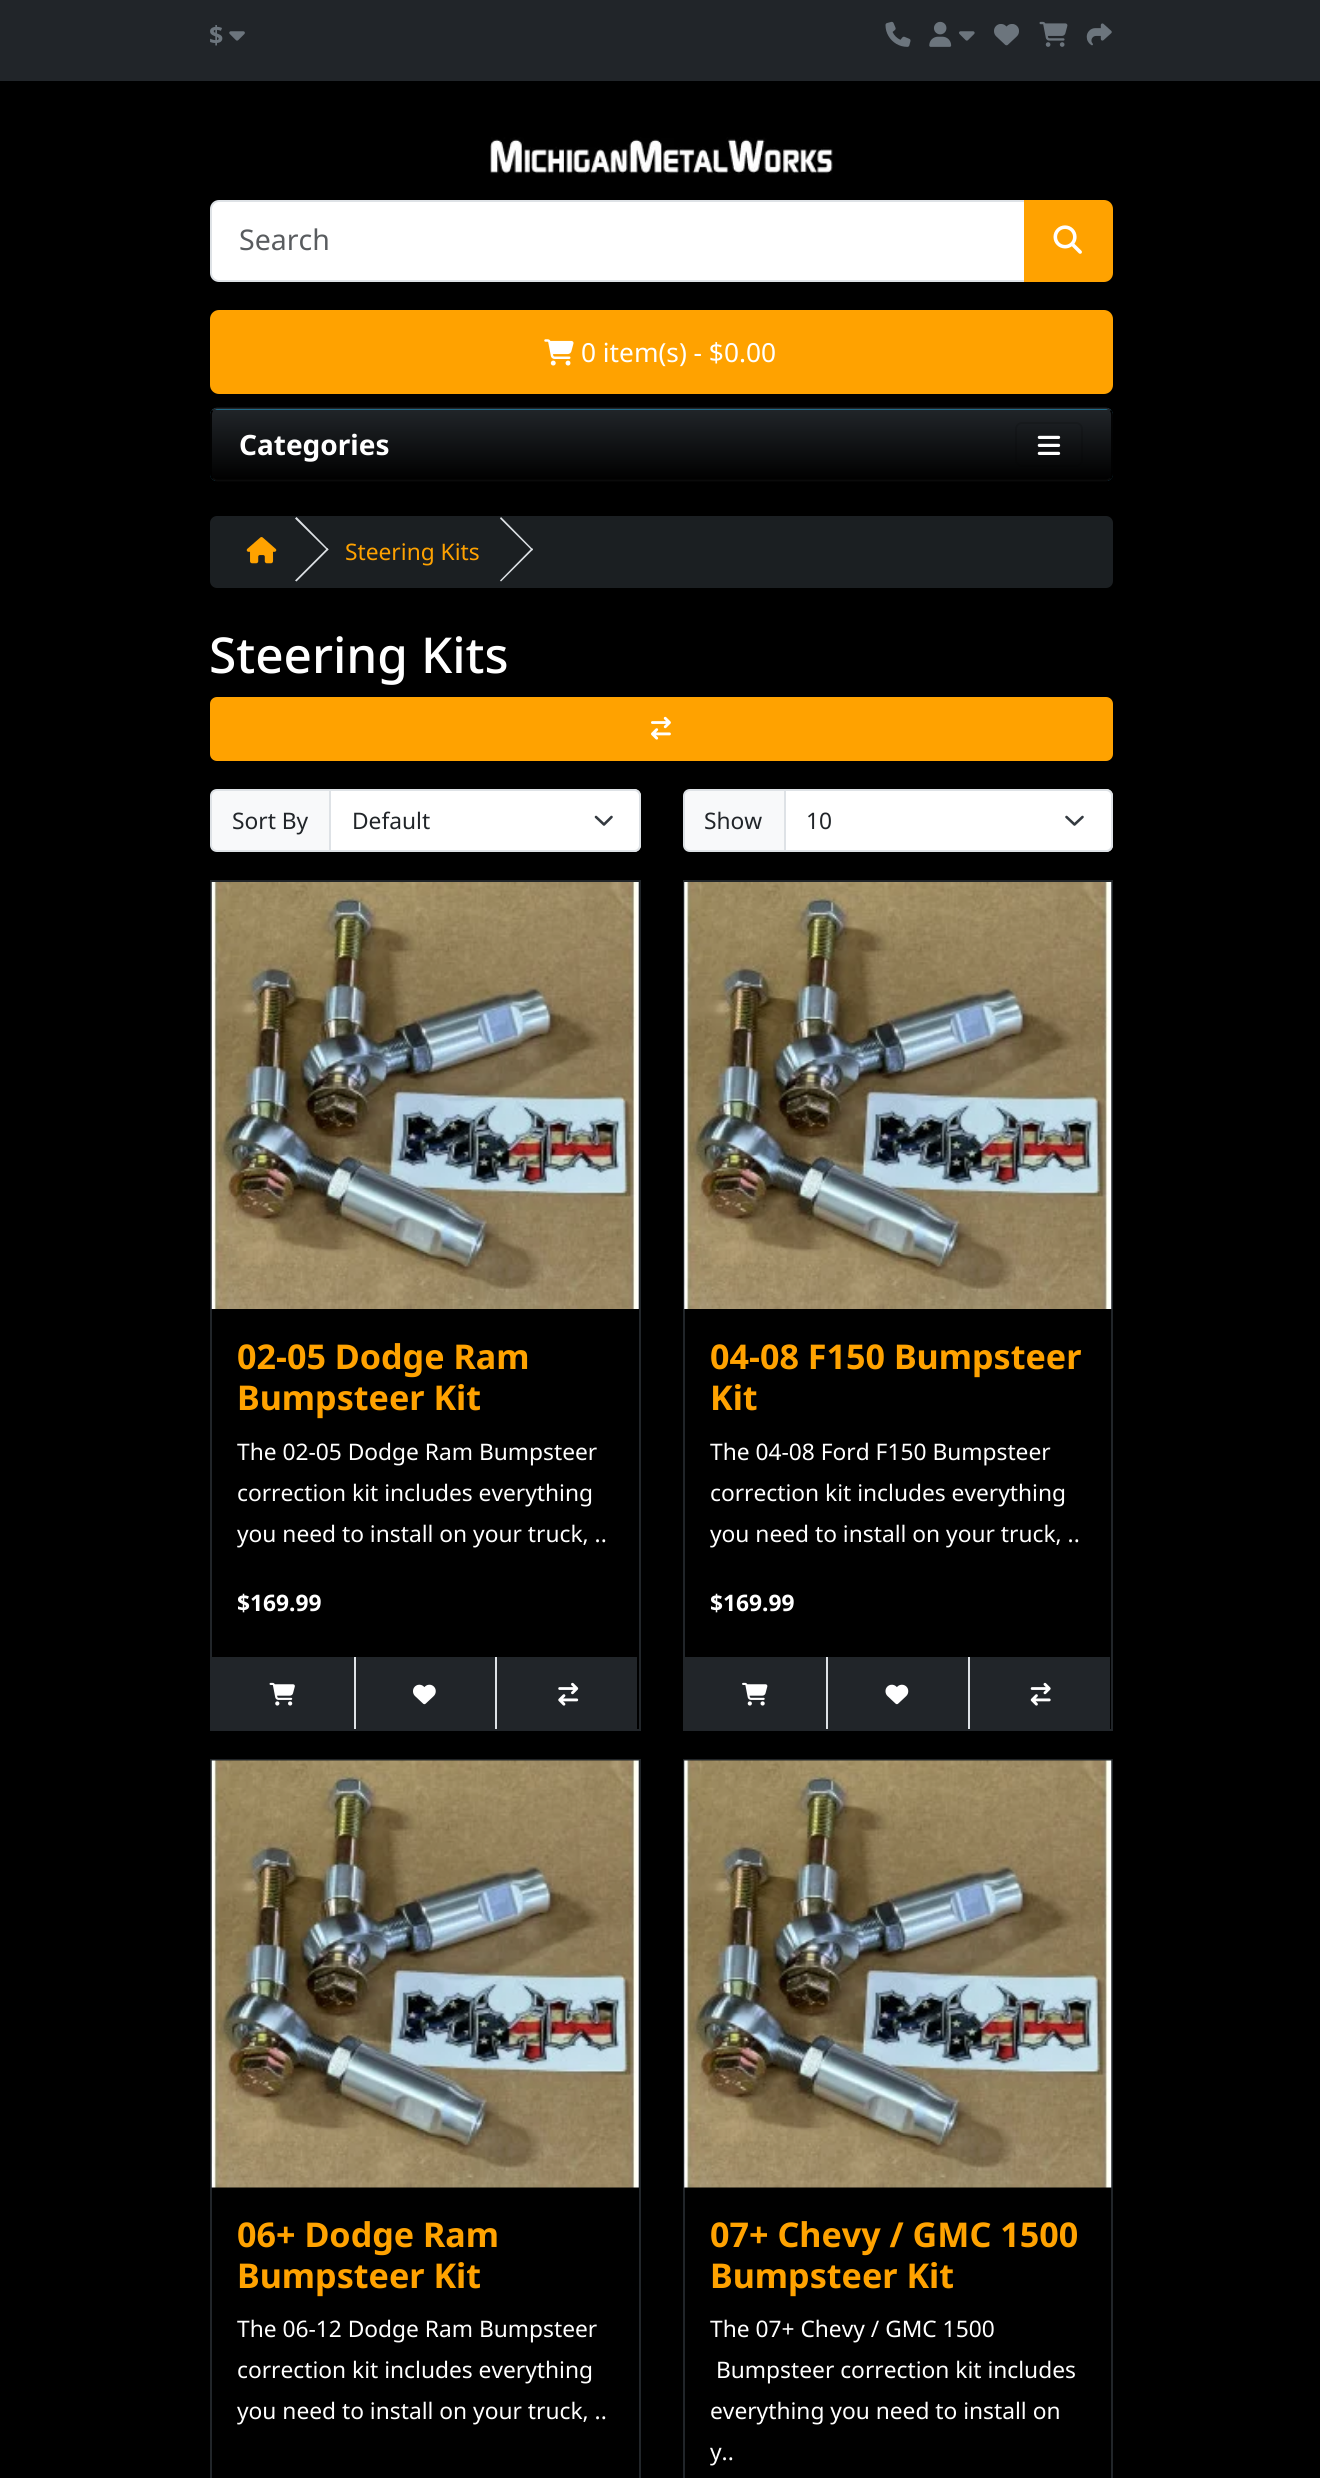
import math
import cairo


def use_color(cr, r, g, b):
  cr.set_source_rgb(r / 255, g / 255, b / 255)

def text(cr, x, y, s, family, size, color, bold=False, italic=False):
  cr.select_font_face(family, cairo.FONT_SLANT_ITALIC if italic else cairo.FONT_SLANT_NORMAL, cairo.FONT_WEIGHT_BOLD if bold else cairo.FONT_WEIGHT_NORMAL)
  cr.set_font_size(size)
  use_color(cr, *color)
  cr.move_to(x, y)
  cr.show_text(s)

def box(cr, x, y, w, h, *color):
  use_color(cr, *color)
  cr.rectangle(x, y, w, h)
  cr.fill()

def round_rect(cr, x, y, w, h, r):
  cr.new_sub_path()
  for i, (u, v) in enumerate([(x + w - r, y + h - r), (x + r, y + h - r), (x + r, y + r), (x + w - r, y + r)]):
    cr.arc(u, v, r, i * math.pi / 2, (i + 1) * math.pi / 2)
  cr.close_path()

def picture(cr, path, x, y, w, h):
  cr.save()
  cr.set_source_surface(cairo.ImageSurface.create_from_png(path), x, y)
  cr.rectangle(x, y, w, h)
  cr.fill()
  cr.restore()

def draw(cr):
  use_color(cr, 0, 0, 0)
  cr.paint()
  box(cr, 0, 0, 1320, 81, 33, 37, 41)
  picture(cr, "img_01.png", 229, 31, 16, 10)
  picture(cr, "img_02.png", 885, 21, 26, 26)
  picture(cr, "img_03.png", 929, 21, 23, 26)
  picture(cr, "img_04.png", 959, 31, 16, 10)
  picture(cr, "img_05.png", 994, 24, 25, 22)
  picture(cr, "img_06.png", 1039, 21, 29, 26)
  picture(cr, "img_07.png", 1086, 23, 26, 23)
  picture(cr, "img_08.png", 490, 137, 343, 38)
  use_color(cr, 255, 255, 255)
  cr.new_path()
  cr.move_to(219, 201)
  cr.line_to(1025, 201)
  cr.line_to(1025, 281)
  cr.line_to(219, 281)
  cr.curve_to(214.5, 281, 211, 277.5, 211, 273)
  cr.line_to(211, 209)
  cr.curve_to(211, 204.5, 214.5, 201, 219, 201)
  cr.close_path()
  cr.fill_preserve()
  use_color(cr, 222, 226, 230)
  cr.stroke()
  use_color(cr, 255, 162, 0)
  cr.new_path()
  cr.move_to(1025, 201)
  cr.line_to(1104, 201)
  cr.curve_to(1108.5, 201, 1112, 204.5, 1112, 209)
  cr.line_to(1112, 273)
  cr.curve_to(1112, 277.5, 1108.5, 281, 1104, 281)
  cr.line_to(1025, 281)
  cr.close_path()
  cr.fill_preserve()
  cr.stroke()
  picture(cr, "img_09.png", 1053, 225, 29, 29)
  round_rect(cr, 211, 311, 901, 82, 8)
  cr.fill_preserve()
  cr.stroke()
  picture(cr, "img_10.png", 544, 339, 30, 27)
  use_color(cr, 34, 154, 200)
  round_rect(cr, 210, 408, 903, 73, 7)
  cr.fill()
  cr.save()
  round_rect(cr, 210, 408, 903, 73, 7)
  cr.clip()
  gradient = cairo.LinearGradient(662, 409, 662, 480)
  gradient.add_color_stop_rgba(0, 0.129, 0.145, 0.161, 1)
  gradient.add_color_stop_rgba(1, 0, 0, 0, 1)
  cr.set_source(gradient)
  cr.rectangle(210, 410, 903, 70)
  cr.fill()
  cr.restore()
  cr.new_path()
  cr.move_to(212.5, 410.5)
  cr.curve_to(214, 409.5, 215.5, 408.5, 217, 408.5)
  cr.line_to(1106, 408.5)
  cr.curve_to(1107.5, 408.5, 1109, 409.5, 1110.5, 410.5)
  use_color(cr, 33, 37, 41)
  cr.set_line_width(1.8)
  cr.stroke()
  cr.new_path()
  cr.move_to(1110.5, 410.5)
  cr.curve_to(1111.5, 411.5, 1112, 413, 1112, 415)
  cr.line_to(1112, 474)
  cr.curve_to(1112, 476, 1111.5, 477.5, 1110.5, 478.5)
  use_color(cr, 0, 0, 0)
  cr.stroke()
  cr.new_path()
  cr.move_to(1110.5, 478.5)
  cr.curve_to(1109, 479.5, 1107.5, 480.5, 1106, 480.5)
  cr.line_to(217, 480.5)
  cr.curve_to(215.5, 480.5, 214, 479.5, 212.5, 478.5)
  use_color(cr, 10, 10, 10)
  cr.stroke()
  cr.new_path()
  cr.move_to(212.5, 478.5)
  cr.curve_to(211.5, 477.5, 211, 476, 211, 474)
  cr.line_to(211, 415)
  cr.curve_to(211, 413, 211.5, 411.5, 212.5, 410.5)
  use_color(cr, 0, 0, 0)
  cr.stroke()
  round_rect(cr, 1016, 423, 66, 43, 6)
  cr.set_source_rgba(0, 0, 0, 0.15)
  cr.set_line_width(2)
  cr.stroke()
  picture(cr, "img_11.png", 1037, 435, 24, 20)
  use_color(cr, 27, 31, 34)
  round_rect(cr, 211, 517, 901, 70, 6)
  cr.fill_preserve()
  cr.stroke()
  picture(cr, "img_12.png", 246, 537, 31, 27)
  use_color(cr, 222, 226, 230)
  cr.new_path()
  cr.move_to(295, 518.5)
  cr.line_to(296.5, 517)
  cr.line_to(328.5, 549.5)
  cr.line_to(327.5, 550.5)
  cr.close_path()
  cr.fill()
  cr.new_path()
  cr.move_to(295, 580.5)
  cr.line_to(327.5, 548)
  cr.line_to(328.5, 549.5)
  cr.line_to(296.5, 581.5)
  cr.close_path()
  cr.fill()
  cr.new_path()
  cr.move_to(500, 518.5)
  cr.line_to(501, 517)
  cr.line_to(533, 549.5)
  cr.line_to(532, 550.5)
  cr.close_path()
  cr.fill()
  cr.new_path()
  cr.move_to(500, 580.5)
  cr.line_to(532, 548)
  cr.line_to(533, 549.5)
  cr.line_to(501, 581.5)
  cr.close_path()
  cr.fill()
  use_color(cr, 255, 162, 0)
  round_rect(cr, 211, 698, 901, 62, 6)
  cr.fill_preserve()
  cr.stroke()
  picture(cr, "img_13.png", 651, 716, 20, 24)
  use_color(cr, 248, 249, 250)
  cr.new_path()
  cr.move_to(217, 790)
  cr.line_to(330, 790)
  cr.line_to(330, 851)
  cr.line_to(217, 851)
  cr.curve_to(213.5, 851, 211, 848.5, 211, 845)
  cr.line_to(211, 796)
  cr.curve_to(211, 792.5, 213.5, 790, 217, 790)
  cr.close_path()
  cr.fill_preserve()
  use_color(cr, 222, 226, 230)
  cr.stroke()
  use_color(cr, 255, 255, 255)
  cr.new_path()
  cr.move_to(329, 789)
  cr.line_to(634, 789)
  cr.curve_to(638, 789, 641, 792, 641, 796)
  cr.line_to(641, 845)
  cr.curve_to(641, 849, 638, 852, 634, 852)
  cr.line_to(329, 852)
  cr.close_path()
  cr.fill()
  cr.new_path()
  cr.move_to(596, 817)
  cr.line_to(604, 824.5)
  cr.line_to(611.5, 817)
  use_color(cr, 52, 58, 64)
  cr.set_line_width(2.6)
  cr.set_line_cap(cairo.LINE_CAP_ROUND)
  cr.set_line_join(cairo.LINE_JOIN_ROUND)
  cr.stroke()
  cr.new_path()
  cr.move_to(330, 790)
  cr.line_to(634, 790)
  cr.curve_to(637.5, 790, 640, 792.5, 640, 796)
  cr.line_to(640, 845)
  cr.curve_to(640, 848.5, 637.5, 851, 634, 851)
  cr.line_to(330, 851)
  cr.close_path()
  use_color(cr, 222, 226, 230)
  cr.set_line_width(2)
  cr.set_line_cap(cairo.LINE_CAP_BUTT)
  cr.set_line_join(cairo.LINE_JOIN_MITER)
  cr.stroke()
  use_color(cr, 248, 249, 250)
  cr.new_path()
  cr.move_to(690, 790)
  cr.line_to(785, 790)
  cr.line_to(785, 851)
  cr.line_to(690, 851)
  cr.curve_to(686.5, 851, 684, 848.5, 684, 845)
  cr.line_to(684, 796)
  cr.curve_to(684, 792.5, 686.5, 790, 690, 790)
  cr.close_path()
  cr.fill_preserve()
  use_color(cr, 222, 226, 230)
  cr.stroke()
  use_color(cr, 255, 255, 255)
  cr.new_path()
  cr.move_to(784, 789)
  cr.line_to(1106, 789)
  cr.curve_to(1110, 789, 1113, 792, 1113, 796)
  cr.line_to(1113, 845)
  cr.curve_to(1113, 849, 1110, 852, 1106, 852)
  cr.line_to(784, 852)
  cr.close_path()
  cr.fill()
  cr.new_path()
  cr.move_to(1066.5, 817)
  cr.line_to(1074.5, 824.5)
  cr.line_to(1082.5, 817)
  use_color(cr, 52, 58, 64)
  cr.set_line_width(2.6)
  cr.set_line_cap(cairo.LINE_CAP_ROUND)
  cr.set_line_join(cairo.LINE_JOIN_ROUND)
  cr.stroke()
  cr.new_path()
  cr.move_to(785, 790)
  cr.line_to(1106, 790)
  cr.curve_to(1109.5, 790, 1112, 792.5, 1112, 796)
  cr.line_to(1112, 845)
  cr.curve_to(1112, 848.5, 1109.5, 851, 1106, 851)
  cr.line_to(785, 851)
  cr.close_path()
  use_color(cr, 222, 226, 230)
  cr.set_line_width(2)
  cr.set_line_cap(cairo.LINE_CAP_BUTT)
  cr.set_line_join(cairo.LINE_JOIN_MITER)
  cr.stroke()
  cr.rectangle(211, 881, 429, 849)
  use_color(cr, 33, 37, 41)
  cr.stroke()
  picture(cr, "img_14.png", 211, 882, 428, 427)
  box(cr, 212, 1657, 142, 72, 33, 37, 41)
  picture(cr, "img_15.png", 269, 1682, 26, 24)
  box(cr, 356, 1657, 139, 72, 33, 37, 41)
  box(cr, 354, 1657, 2, 72, 222, 226, 230)
  picture(cr, "img_16.png", 413, 1684, 23, 21)
  box(cr, 497, 1657, 140, 72, 33, 37, 41)
  box(cr, 495, 1657, 2, 72, 222, 226, 230)
  picture(cr, "img_17.png", 558, 1682, 21, 24)
  cr.rectangle(684, 881, 428, 849)
  use_color(cr, 33, 37, 41)
  cr.stroke()
  picture(cr, "img_18.png", 684, 882, 428, 427)
  box(cr, 685, 1657, 141, 72, 33, 37, 41)
  picture(cr, "img_19.png", 742, 1682, 26, 24)
  box(cr, 828, 1657, 140, 72, 33, 37, 41)
  box(cr, 826, 1657, 2, 72, 222, 226, 230)
  picture(cr, "img_20.png", 885, 1684, 24, 21)
  box(cr, 970, 1657, 140, 72, 33, 37, 41)
  box(cr, 968, 1657, 2, 72, 222, 226, 230)
  picture(cr, "img_21.png", 1030, 1682, 21, 24)
  cr.rectangle(211, 1760, 429, 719)
  use_color(cr, 33, 37, 41)
  cr.stroke()
  picture(cr, "img_22.png", 211, 1760, 428, 428)
  cr.rectangle(684, 1760, 428, 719)
  cr.stroke()
  picture(cr, "img_23.png", 684, 1760, 428, 428)
  text(cr, 209, 44, "$", "Noto Sans", 25, (108, 117, 125), bold=True)
  text(cr, 239, 250, "Search", "Noto Sans", 28.5, (89, 92, 95))
  text(cr, 581, 362, "0 item(s) - $0.00", "Noto Sans", 26.25, (255, 255, 255))
  text(cr, 239, 455, "Categories", "Noto Sans", 28, (255, 255, 255), bold=True)
  text(cr, 345, 560, "Steering Kits", "Noto Sans", 22.75, (255, 162, 0))
  text(cr, 209, 673, "Steering Kits", "Noto Sans Medium", 49.5, (255, 255, 255))
  text(cr, 232, 829, "Sort By", "Noto Sans", 22.75, (33, 37, 41))
  text(cr, 352, 829, "Default", "Noto Sans", 22.75, (33, 37, 41))
  text(cr, 704, 829, "Show", "Noto Sans", 22.75, (33, 37, 41))
  text(cr, 806, 829, "10", "Noto Sans", 22.75, (33, 37, 41))
  text(cr, 237, 1369, "02-05 Dodge Ram", "Noto Sans", 34.1, (255, 162, 0), bold=True)
  text(cr, 237, 1410, "Bumpsteer Kit", "Noto Sans", 34.1, (255, 162, 0), bold=True)
  text(cr, 237, 1460, "The 02-05 Dodge Ram Bumpsteer", "Noto Sans", 22.75, (255, 255, 255))
  text(cr, 237, 1501, "correction kit includes everything", "Noto Sans", 22.75, (255, 255, 255))
  text(cr, 237, 1542, "you need to install on your truck, ..", "Noto Sans", 22.75, (255, 255, 255))
  text(cr, 237, 1611, "$169.99", "Noto Sans", 22.75, (255, 255, 255), bold=True)
  text(cr, 710, 1369, "04-08 F150 Bumpsteer", "Noto Sans", 34.1, (255, 162, 0), bold=True)
  text(cr, 710, 1410, "Kit", "Noto Sans", 34.1, (255, 162, 0), bold=True)
  text(cr, 710, 1460, "The 04-08 Ford F150 Bumpsteer", "Noto Sans", 22.75, (255, 255, 255))
  text(cr, 710, 1501, "correction kit includes everything", "Noto Sans", 22.75, (255, 255, 255))
  text(cr, 710, 1542, "you need to install on your truck, ..", "Noto Sans", 22.75, (255, 255, 255))
  text(cr, 710, 1611, "$169.99", "Noto Sans", 22.75, (255, 255, 255), bold=True)
  text(cr, 237, 2247, "06+ Dodge Ram", "Noto Sans", 34.1, (255, 162, 0), bold=True)
  text(cr, 237, 2288, "Bumpsteer Kit", "Noto Sans", 34.1, (255, 162, 0), bold=True)
  text(cr, 237, 2337, "The 06-12 Dodge Ram Bumpsteer", "Noto Sans", 22.75, (255, 255, 255))
  text(cr, 237, 2378, "correction kit includes everything", "Noto Sans", 22.75, (255, 255, 255))
  text(cr, 237, 2419, "you need to install on your truck, ..", "Noto Sans", 22.75, (255, 255, 255))
  text(cr, 710, 2247, "07+ Chevy / GMC 1500", "Noto Sans", 34.1, (255, 162, 0), bold=True)
  text(cr, 710, 2288, "Bumpsteer Kit", "Noto Sans", 34.1, (255, 162, 0), bold=True)
  text(cr, 710, 2337, "The 07+ Chevy / GMC 1500", "Noto Sans", 22.75, (255, 255, 255))
  text(cr, 716, 2378, "Bumpsteer correction kit includes", "Noto Sans", 22.75, (255, 255, 255))
  text(cr, 710, 2419, "everything you need to install on", "Noto Sans", 22.75, (255, 255, 255))
  text(cr, 710, 2460, "y..", "Noto Sans", 22.75, (255, 255, 255))


surface = cairo.ImageSurface(cairo.FORMAT_RGB24, 1320, 2478)
cr = cairo.Context(surface)
options = cairo.FontOptions()
options.set_hint_metrics(cairo.HINT_METRICS_OFF)
options.set_hint_style(cairo.HINT_STYLE_NONE)
cr.set_font_options(options)
cr.set_miter_limit(4)
draw(cr)
surface.write_to_png("out.png")
